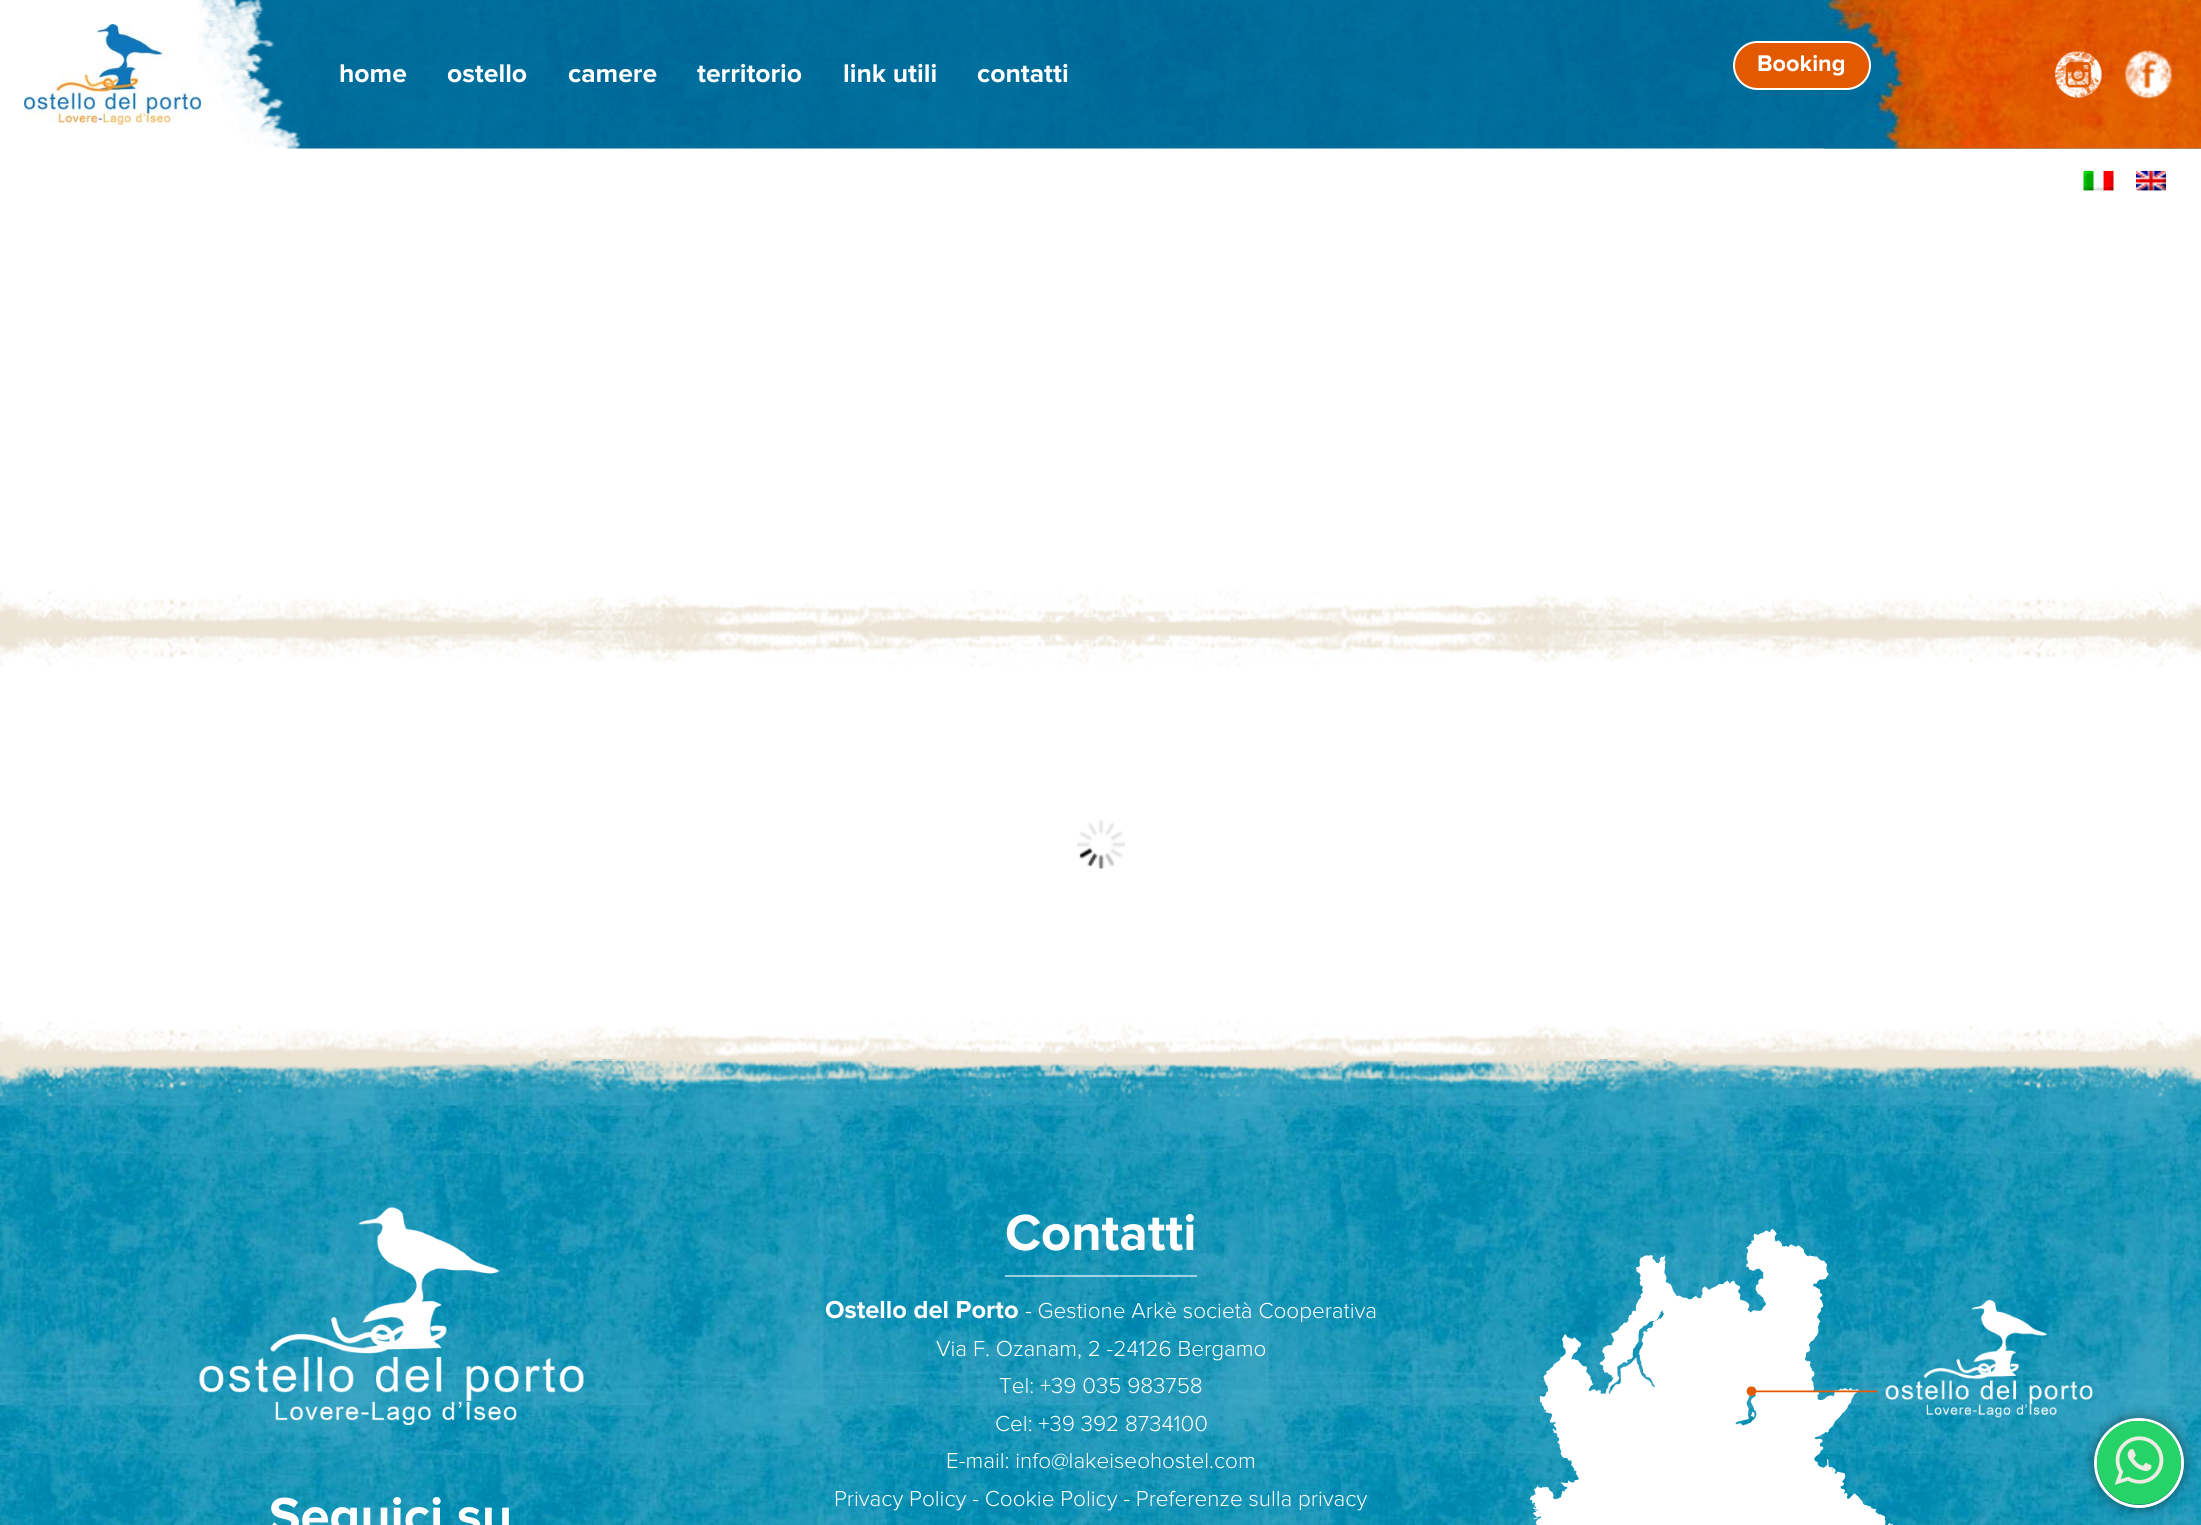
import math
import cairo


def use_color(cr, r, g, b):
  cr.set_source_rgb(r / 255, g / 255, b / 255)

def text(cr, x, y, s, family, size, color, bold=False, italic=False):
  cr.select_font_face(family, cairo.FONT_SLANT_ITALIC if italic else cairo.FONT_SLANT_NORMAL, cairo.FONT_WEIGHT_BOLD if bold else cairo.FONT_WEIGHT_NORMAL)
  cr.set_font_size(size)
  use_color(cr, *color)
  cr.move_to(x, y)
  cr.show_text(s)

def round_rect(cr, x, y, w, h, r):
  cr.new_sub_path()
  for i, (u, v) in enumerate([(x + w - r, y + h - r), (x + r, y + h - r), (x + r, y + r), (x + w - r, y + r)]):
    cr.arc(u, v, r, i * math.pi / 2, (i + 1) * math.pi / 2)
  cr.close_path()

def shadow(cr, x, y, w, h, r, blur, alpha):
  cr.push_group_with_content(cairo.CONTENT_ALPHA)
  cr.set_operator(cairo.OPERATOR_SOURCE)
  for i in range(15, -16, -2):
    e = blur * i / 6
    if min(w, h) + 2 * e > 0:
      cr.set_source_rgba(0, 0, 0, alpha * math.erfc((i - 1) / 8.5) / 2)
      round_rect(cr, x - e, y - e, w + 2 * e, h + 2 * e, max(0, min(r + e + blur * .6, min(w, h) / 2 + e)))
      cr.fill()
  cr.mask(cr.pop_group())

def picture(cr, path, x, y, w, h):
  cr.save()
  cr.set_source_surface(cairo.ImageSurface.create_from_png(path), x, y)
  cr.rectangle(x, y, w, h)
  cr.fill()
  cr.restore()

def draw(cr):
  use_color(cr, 255, 255, 255)
  cr.paint()
  picture(cr, "img_02.png", 24, 24, 177, 101)
  picture(cr, "img_01.png", 198, 0, 2003, 149)
  picture(cr, "img_03.png", 1824, 0, 377, 149)
  use_color(cr, 227, 89, 0)
  round_rect(cr, 1734, 42, 136, 47, 23.5)
  cr.fill_preserve()
  use_color(cr, 255, 255, 255)
  cr.stroke()
  picture(cr, "img_04.png", 2054, 51, 48, 47)
  picture(cr, "img_05.png", 2125, 50, 48, 49)
  picture(cr, "img_06.png", 2083, 170, 31, 21)
  picture(cr, "img_07.png", 2136, 170, 30, 21)
  picture(cr, "img_08.png", 0, 591, 2201, 75)
  picture(cr, "img_09.png", 1077, 820, 48, 49)
  picture(cr, "img_10.png", 0, 1059, 2201, 466)
  picture(cr, "img_11.png", 0, 1021, 2201, 76)
  picture(cr, "img_12.png", 199, 1207, 385, 218)
  cr.set_source_rgba(0.98, 0.98, 0.98, 0.6)
  cr.rectangle(1005, 1275, 192, 2)
  cr.fill()
  picture(cr, "img_13.png", 1530, 1229, 563, 296)
  use_color(cr, 10, 10, 10)
  shadow(cr, 2094, 1418, 90, 90, 45, 6, 0.5)
  cr.arc(2139, 1463, 43.5, 0, 2 * math.pi)
  use_color(cr, 255, 255, 255)
  cr.set_line_width(3)
  cr.stroke()
  picture(cr, "img_14.png", 2097, 1421, 84, 84)
  text(cr, 339, 82, "home", "Proxima Nova", 26.5, (255, 255, 255), bold=True)
  text(cr, 447, 82, "ostello", "Proxima Nova", 26.5, (255, 255, 255), bold=True)
  text(cr, 568, 82, "camere", "Proxima Nova", 26.5, (255, 255, 255), bold=True)
  text(cr, 697, 82, "territorio", "Proxima Nova", 26.5, (255, 255, 255), bold=True)
  text(cr, 843, 82, "link utili", "Proxima Nova", 26.5, (255, 255, 255), bold=True)
  text(cr, 977, 82, "contatti", "Proxima Nova", 26.5, (255, 255, 255), bold=True)
  text(cr, 1757, 71, "Booking", "Proxima Nova", 23.5, (255, 255, 255), bold=True)
  text(cr, 269, 1533, "Seguici su", "Proxima Nova", 52.5, (255, 255, 255), bold=True)
  text(cr, 1005, 1250, "Contatti", "Proxima Nova", 52.5, (255, 255, 255), bold=True)
  text(cr, 825, 1318, "Ostello del Porto", "Proxima Nova", 25.5, (255, 255, 255), bold=True)
  text(cr, 1025, 1318, "- Gestione Arkè società Cooperativa", "Proxima Nova Light", 22.5, (255, 255, 255))
  text(cr, 936, 1356, "Via F. Ozanam, 2 -24126 Bergamo", "Proxima Nova Light", 22.5, (255, 255, 255))
  text(cr, 999, 1393, "Tel: +39 035 983758", "Proxima Nova Light", 22.5, (255, 255, 255))
  text(cr, 995, 1431, "Cel: +39 392 8734100", "Proxima Nova Light", 22.5, (255, 255, 255))
  text(cr, 946, 1468, "E-mail: info@lakeiseohostel.com", "Proxima Nova Light", 22.5, (255, 255, 255))
  text(cr, 834, 1506, "Privacy Policy - Cookie Policy - Preferenze sulla privacy", "Proxima Nova Light", 22.5, (255, 255, 255))


surface = cairo.ImageSurface(cairo.FORMAT_RGB24, 2201, 1525)
cr = cairo.Context(surface)
options = cairo.FontOptions()
options.set_hint_metrics(cairo.HINT_METRICS_OFF)
options.set_hint_style(cairo.HINT_STYLE_NONE)
cr.set_font_options(options)
cr.set_miter_limit(4)
draw(cr)
surface.write_to_png("out.png")
